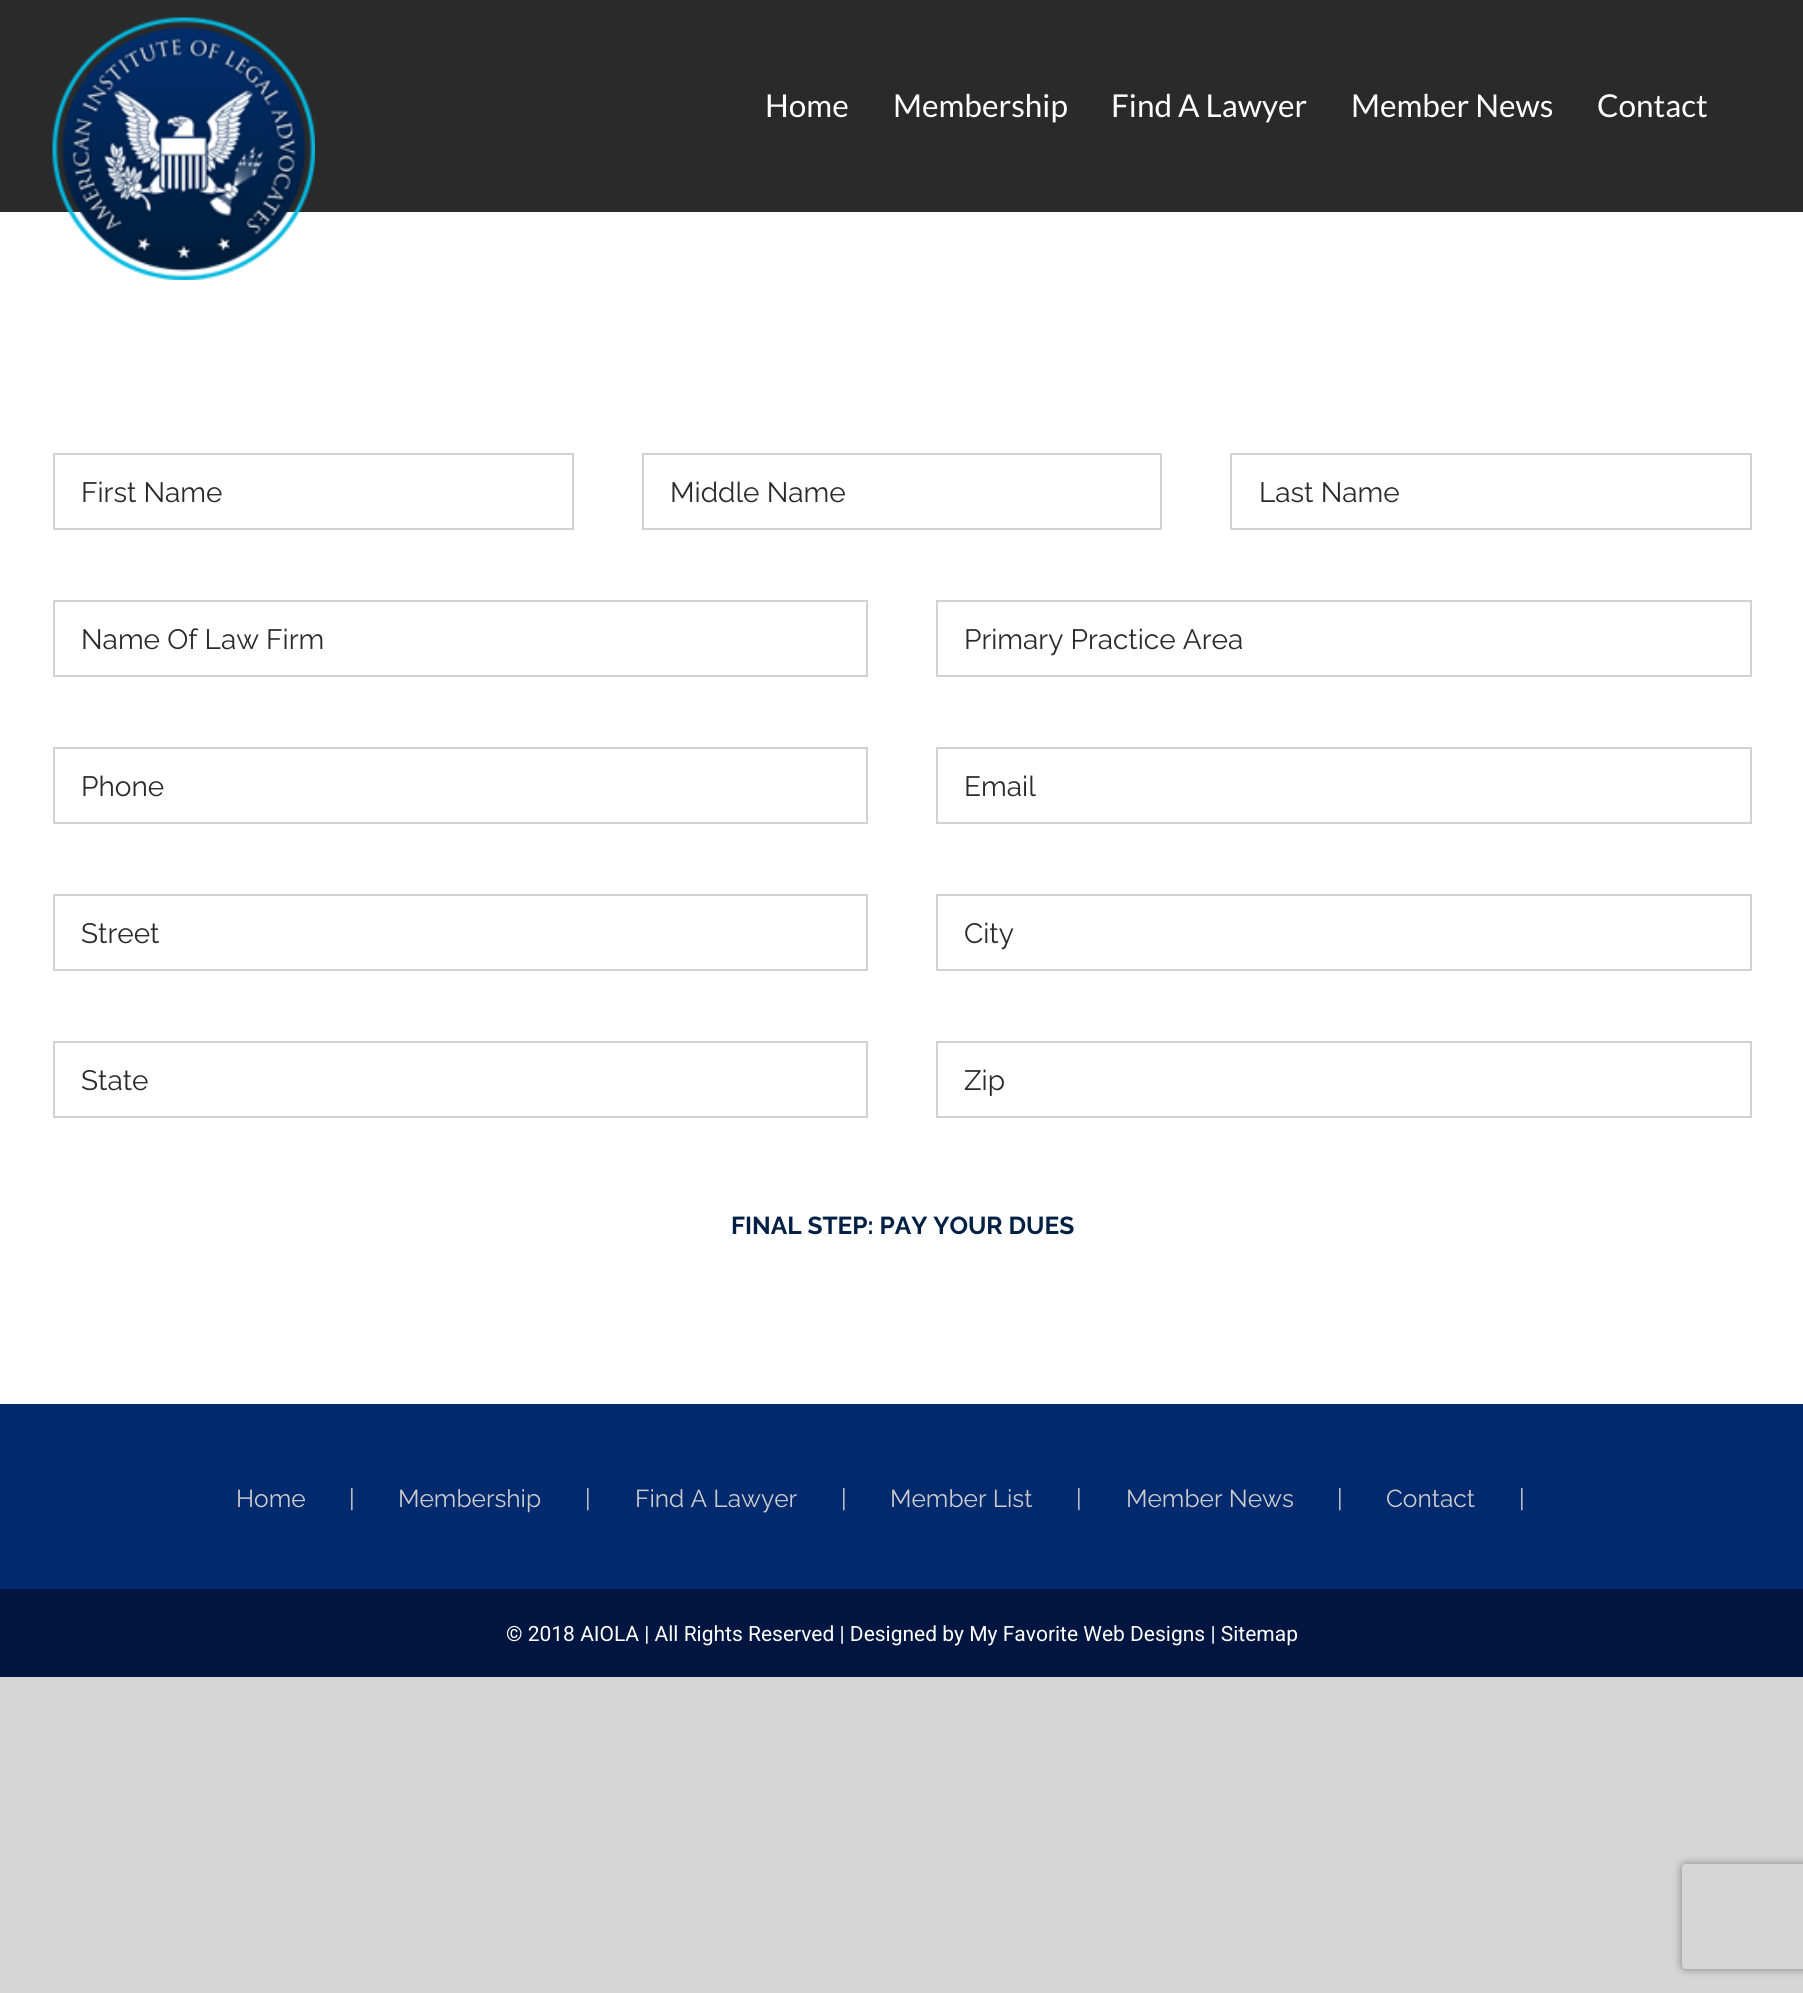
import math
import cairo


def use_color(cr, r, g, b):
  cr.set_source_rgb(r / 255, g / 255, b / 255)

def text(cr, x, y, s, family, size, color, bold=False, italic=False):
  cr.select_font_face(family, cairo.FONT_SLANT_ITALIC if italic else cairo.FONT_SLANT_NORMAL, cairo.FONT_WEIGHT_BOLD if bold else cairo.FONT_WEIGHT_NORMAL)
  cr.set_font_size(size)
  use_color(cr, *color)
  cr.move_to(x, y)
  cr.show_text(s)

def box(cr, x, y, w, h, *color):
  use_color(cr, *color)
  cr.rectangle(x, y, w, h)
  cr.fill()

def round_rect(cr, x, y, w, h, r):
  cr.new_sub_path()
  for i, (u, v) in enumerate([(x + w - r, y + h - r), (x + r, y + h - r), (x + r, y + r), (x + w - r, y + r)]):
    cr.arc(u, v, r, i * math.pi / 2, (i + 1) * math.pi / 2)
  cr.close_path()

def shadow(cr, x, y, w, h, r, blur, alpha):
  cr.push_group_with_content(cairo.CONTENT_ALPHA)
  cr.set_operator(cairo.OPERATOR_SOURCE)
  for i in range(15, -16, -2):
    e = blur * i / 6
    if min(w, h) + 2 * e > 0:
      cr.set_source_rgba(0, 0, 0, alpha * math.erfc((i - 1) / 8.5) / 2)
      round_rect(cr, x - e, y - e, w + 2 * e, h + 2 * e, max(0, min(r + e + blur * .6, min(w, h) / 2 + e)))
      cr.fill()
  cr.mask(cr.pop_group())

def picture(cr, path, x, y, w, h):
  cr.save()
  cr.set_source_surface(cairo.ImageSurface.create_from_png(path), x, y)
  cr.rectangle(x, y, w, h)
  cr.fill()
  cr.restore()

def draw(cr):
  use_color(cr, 215, 214, 214)
  cr.paint()
  box(cr, 0, 212, 1803, 1192, 255, 255, 255)
  box(cr, 0, 0, 1803, 212, 42, 42, 42)
  picture(cr, "img_01.png", 52, 17, 263, 263)
  cr.rectangle(54, 454, 519, 75)
  use_color(cr, 210, 210, 210)
  cr.stroke()
  cr.rectangle(643, 454, 518, 75)
  cr.stroke()
  cr.rectangle(1231, 454, 520, 75)
  cr.stroke()
  cr.rectangle(54, 601, 813, 75)
  cr.stroke()
  cr.rectangle(937, 601, 814, 75)
  cr.stroke()
  cr.rectangle(54, 748, 813, 75)
  cr.stroke()
  cr.rectangle(937, 748, 814, 75)
  cr.stroke()
  cr.rectangle(54, 895, 813, 75)
  cr.stroke()
  cr.rectangle(937, 895, 814, 75)
  cr.stroke()
  cr.rectangle(54, 1042, 813, 75)
  cr.stroke()
  cr.rectangle(937, 1042, 814, 75)
  cr.stroke()
  box(cr, 0, 1404, 1803, 185, 1, 41, 110)
  box(cr, 0, 1589, 1803, 88, 0, 21, 64)
  cr.save()
  cr.set_fill_rule(cairo.FILL_RULE_EVEN_ODD)
  cr.new_path()
  cr.move_to(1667, 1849)
  cr.line_to(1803, 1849)
  cr.line_to(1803, 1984)
  cr.line_to(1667, 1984)
  cr.close_path()
  cr.move_to(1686, 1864)
  cr.line_to(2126, 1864)
  cr.curve_to(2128, 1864, 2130, 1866, 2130, 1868)
  cr.line_to(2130, 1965)
  cr.curve_to(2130, 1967, 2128, 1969, 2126, 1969)
  cr.line_to(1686, 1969)
  cr.curve_to(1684, 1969, 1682, 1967, 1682, 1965)
  cr.line_to(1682, 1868)
  cr.curve_to(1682, 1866, 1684, 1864, 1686, 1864)
  cr.close_path()
  cr.clip()
  use_color(cr, 128, 128, 128)
  shadow(cr, 1682, 1864, 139, 105, 4, 4.5, 1)
  cr.restore()
  text(cr, 765, 117, "Home", "Lato", 31.5, (255, 255, 255))
  text(cr, 893, 117, "Membership", "Lato", 31.5, (255, 255, 255))
  text(cr, 1111, 117, "Find A Lawyer", "Lato", 31.5, (255, 255, 255))
  text(cr, 1351, 117, "Member News", "Lato", 31.5, (255, 255, 255))
  text(cr, 1597, 117, "Contact", "Lato", 31.5, (255, 255, 255))
  text(cr, 81, 502, "First Name", "Raleway", 28, (42, 42, 42))
  text(cr, 670, 502, "Middle Name", "Raleway", 28, (42, 42, 42))
  text(cr, 1259, 502, "Last Name", "Raleway", 28, (42, 42, 42))
  text(cr, 81, 649, "Name Of Law Firm", "Raleway", 28, (42, 42, 42))
  text(cr, 964, 649, "Primary Practice Area", "Raleway", 28, (42, 42, 42))
  text(cr, 81, 796, "Phone", "Raleway", 28, (42, 42, 42))
  text(cr, 964, 796, "Email", "Raleway", 28, (42, 42, 42))
  text(cr, 81, 943, "Street", "Raleway", 28, (42, 42, 42))
  text(cr, 964, 943, "City", "Raleway", 28, (42, 42, 42))
  text(cr, 81, 1090, "State", "Raleway", 28, (42, 42, 42))
  text(cr, 964, 1090, "Zip", "Raleway", 28, (42, 42, 42))
  text(cr, 731, 1234, "FINAL STEP: PAY YOUR DUES", "Raleway", 24.5, (1, 32, 68), bold=True)
  text(cr, 236, 1507, "Home", "Raleway", 24.5, (204, 204, 204))
  text(cr, 349, 1507, "|", "Raleway", 24.5, (204, 204, 204))
  text(cr, 398, 1507, "Membership", "Raleway", 24.5, (204, 204, 204))
  text(cr, 585, 1507, "|", "Raleway", 24.5, (204, 204, 204))
  text(cr, 635, 1507, "Find A Lawyer", "Raleway", 24.5, (204, 204, 204))
  text(cr, 841, 1507, "|", "Raleway", 24.5, (204, 204, 204))
  text(cr, 890, 1507, "Member List", "Raleway", 24.5, (204, 204, 204))
  text(cr, 1076, 1507, "|", "Raleway", 24.5, (204, 204, 204))
  text(cr, 1126, 1507, "Member News", "Raleway", 24.5, (204, 204, 204))
  text(cr, 1337, 1507, "|", "Raleway", 24.5, (204, 204, 204))
  text(cr, 1386, 1507, "Contact", "Raleway", 24.5, (204, 204, 204))
  text(cr, 1519, 1507, "|", "Raleway", 24.5, (204, 204, 204))
  text(cr, 506, 1641, "© 2018 AIOLA | All Rights Reserved | Designed by My Favorite Web Designs | Sitemap", "Roboto", 21, (255, 255, 255))


surface = cairo.ImageSurface(cairo.FORMAT_RGB24, 1803, 1993)
cr = cairo.Context(surface)
options = cairo.FontOptions()
options.set_hint_metrics(cairo.HINT_METRICS_OFF)
options.set_hint_style(cairo.HINT_STYLE_NONE)
cr.set_font_options(options)
cr.set_miter_limit(4)
draw(cr)
surface.write_to_png("out.png")
